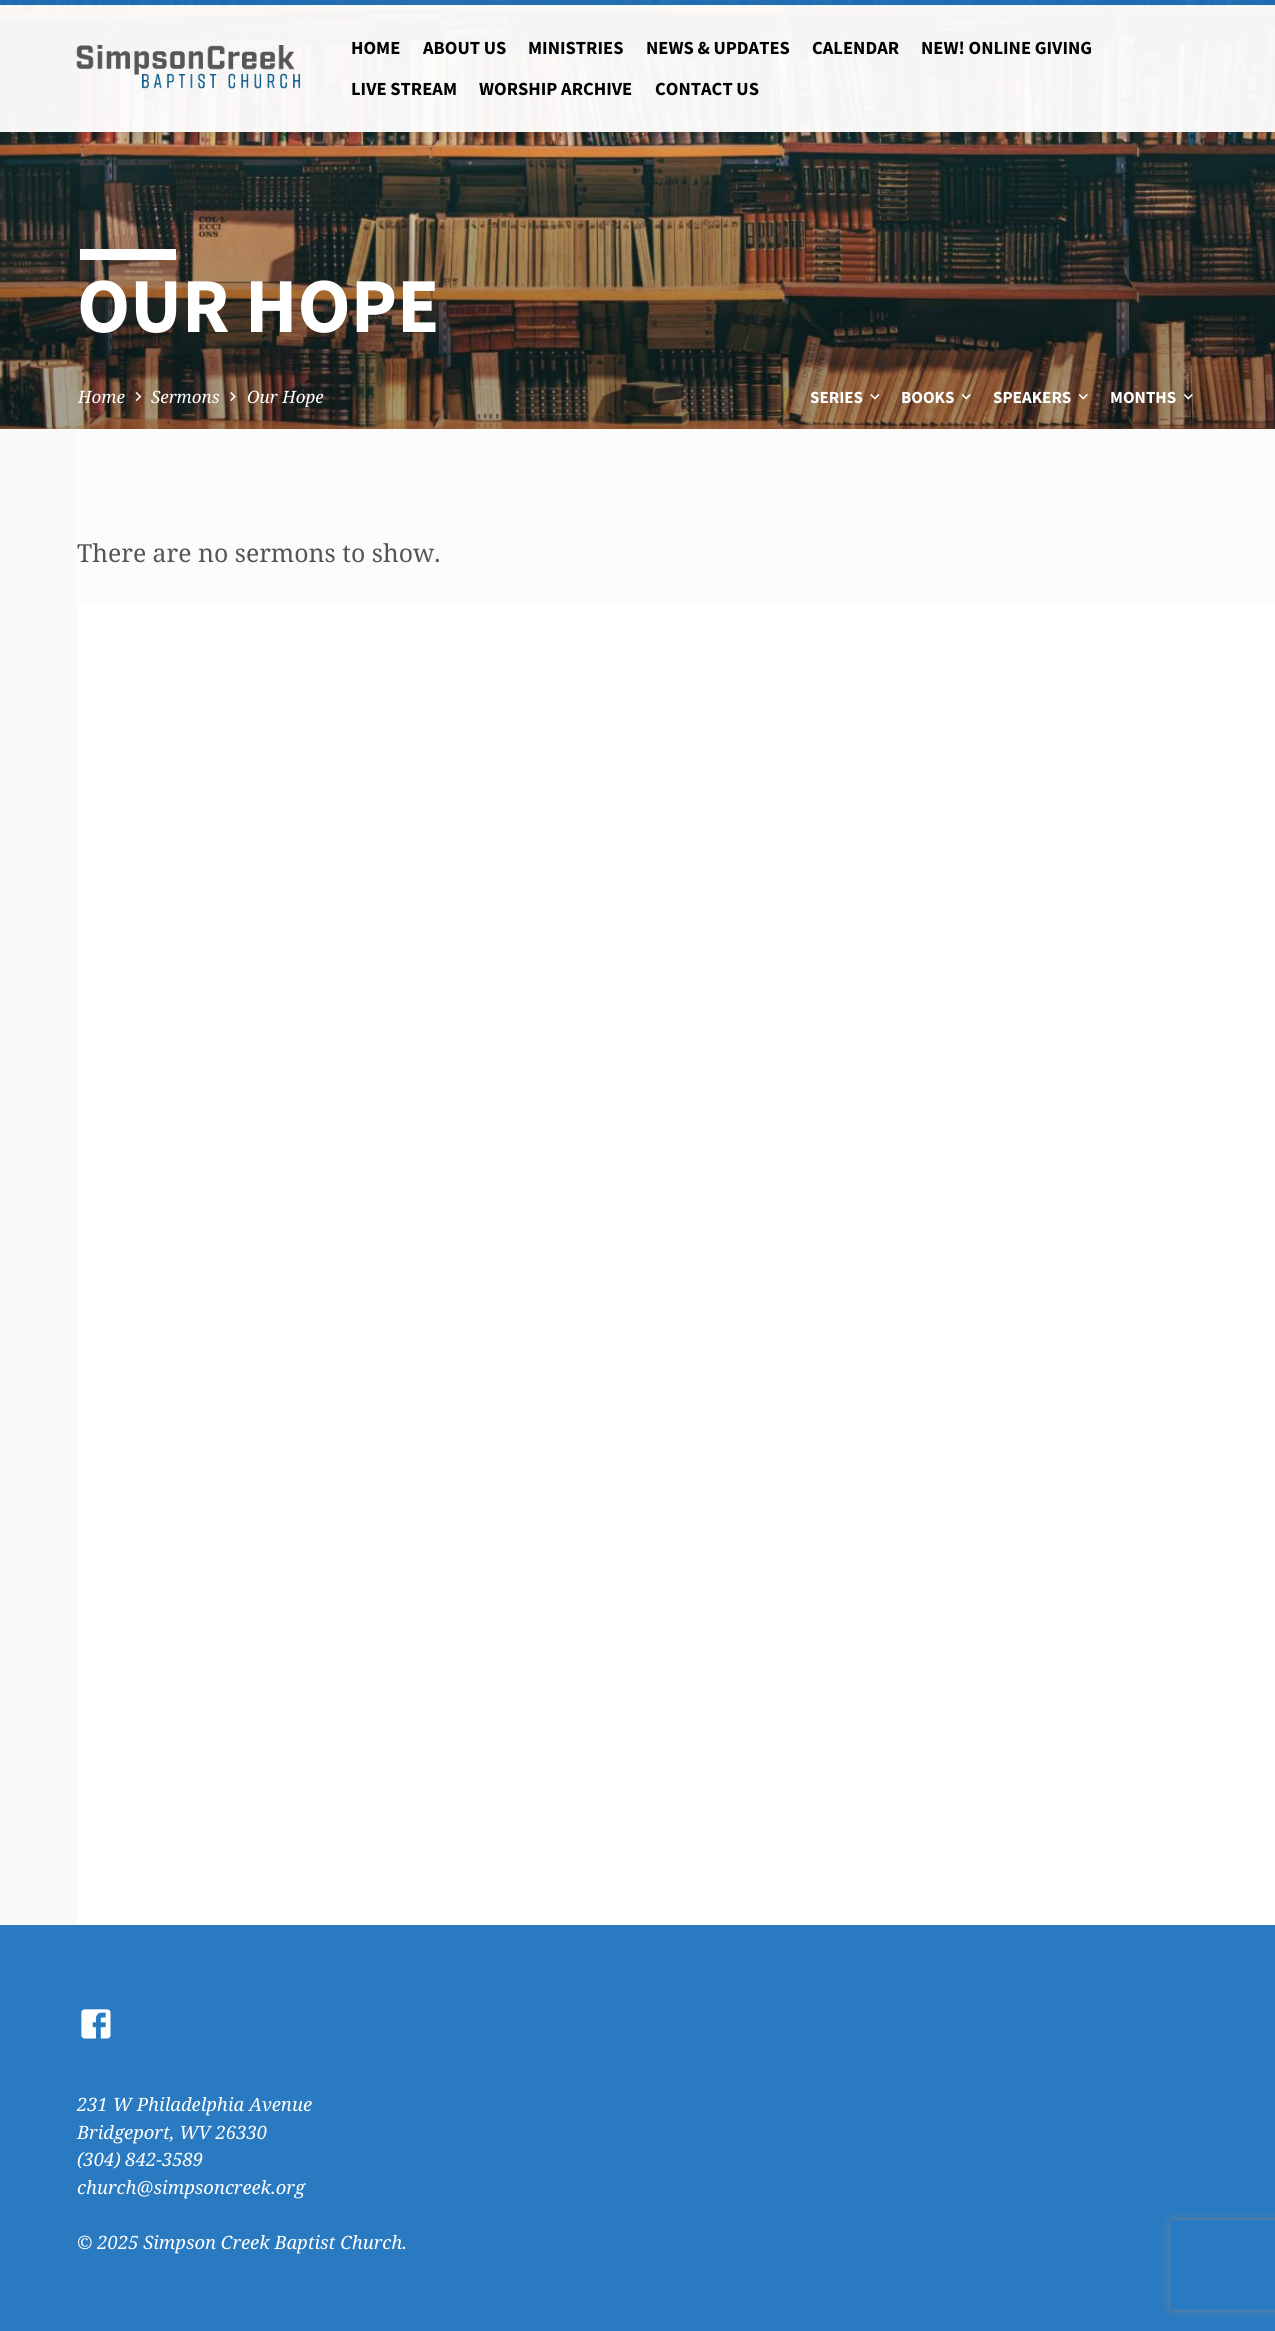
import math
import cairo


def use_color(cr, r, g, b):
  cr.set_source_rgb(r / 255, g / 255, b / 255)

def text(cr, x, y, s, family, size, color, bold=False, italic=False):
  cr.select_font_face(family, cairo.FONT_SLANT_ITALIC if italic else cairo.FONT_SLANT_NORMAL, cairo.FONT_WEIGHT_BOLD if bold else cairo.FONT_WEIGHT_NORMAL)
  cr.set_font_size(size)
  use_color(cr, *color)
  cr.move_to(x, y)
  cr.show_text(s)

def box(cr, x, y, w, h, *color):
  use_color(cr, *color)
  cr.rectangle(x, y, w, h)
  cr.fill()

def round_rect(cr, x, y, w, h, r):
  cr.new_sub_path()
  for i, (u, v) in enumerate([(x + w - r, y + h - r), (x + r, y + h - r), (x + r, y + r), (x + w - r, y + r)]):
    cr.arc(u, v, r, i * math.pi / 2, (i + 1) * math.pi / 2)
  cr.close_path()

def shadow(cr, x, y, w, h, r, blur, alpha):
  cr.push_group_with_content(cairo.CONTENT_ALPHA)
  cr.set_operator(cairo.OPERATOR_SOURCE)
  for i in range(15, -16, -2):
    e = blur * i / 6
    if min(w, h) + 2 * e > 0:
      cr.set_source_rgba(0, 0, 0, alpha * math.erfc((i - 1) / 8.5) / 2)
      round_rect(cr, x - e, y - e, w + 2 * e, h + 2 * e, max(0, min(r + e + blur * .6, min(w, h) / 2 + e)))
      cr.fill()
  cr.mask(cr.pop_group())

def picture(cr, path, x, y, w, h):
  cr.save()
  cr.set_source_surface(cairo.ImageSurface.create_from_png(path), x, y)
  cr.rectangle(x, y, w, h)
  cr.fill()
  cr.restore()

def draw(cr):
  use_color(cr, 255, 255, 255)
  cr.paint()
  picture(cr, "img_02.png", 0, 0, 1275, 429)
  cr.set_source_rgba(0.118, 0.451, 0.745, 0.95)
  cr.rectangle(0, 0, 1275, 5)
  cr.fill()
  cr.set_source_rgba(1, 1, 1, 0.95)
  cr.rectangle(0, 5, 1275, 127)
  cr.fill()
  cr.save()
  cr.set_fill_rule(cairo.FILL_RULE_EVEN_ODD)
  cr.new_path()
  cr.move_to(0, 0)
  cr.line_to(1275, 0)
  cr.line_to(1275, 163)
  cr.line_to(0, 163)
  cr.close_path()
  cr.move_to(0, 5)
  cr.line_to(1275, 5)
  cr.line_to(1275, 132)
  cr.line_to(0, 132)
  cr.close_path()
  cr.clip()
  use_color(cr, 0, 0, 0)
  shadow(cr, 0, 8, 1275, 127, 0, 9, 0.14)
  cr.restore()
  picture(cr, "img_01.png", 76, 45, 225, 44)
  gradient = cairo.LinearGradient(638, 0, 638, 429)
  gradient.add_color_stop_rgba(0, 0, 0, 0, 0)
  gradient.add_color_stop_rgba(0.36, 0, 0, 0, 0)
  gradient.add_color_stop_rgba(0.76, 0, 0, 0, 0.28)
  gradient.add_color_stop_rgba(1, 0, 0, 0, 0.28)
  cr.set_source(gradient)
  cr.rectangle(0, 168, 1275, 261)
  cr.fill()
  box(cr, 80, 249, 96, 11, 255, 255, 255)
  picture(cr, "img_03.png", 135, 392, 7, 10)
  picture(cr, "img_04.png", 230, 392, 6, 10)
  picture(cr, "img_05.png", 870, 394, 10, 6)
  picture(cr, "img_06.png", 961, 394, 10, 6)
  picture(cr, "img_07.png", 1078, 394, 10, 6)
  picture(cr, "img_08.png", 1183, 394, 10, 6)
  box(cr, 0, 429, 77, 1496, 250, 250, 250)
  gradient = cairo.LinearGradient(714, 429, 714, 1925)
  gradient.add_color_stop_rgba(0.1, 0.988, 0.988, 0.988, 1)
  gradient.add_color_stop_rgba(0.2, 1, 1, 1, 1)
  cr.set_source(gradient)
  cr.rectangle(77, 429, 1198, 175)
  cr.fill()
  box(cr, 0, 1925, 1275, 406, 41, 122, 193)
  picture(cr, "img_09.png", 81, 2009, 30, 30)
  cr.save()
  cr.set_fill_rule(cairo.FILL_RULE_EVEN_ODD)
  cr.new_path()
  cr.move_to(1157, 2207)
  cr.line_to(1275, 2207)
  cr.line_to(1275, 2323)
  cr.line_to(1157, 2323)
  cr.close_path()
  cr.move_to(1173, 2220)
  cr.line_to(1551, 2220)
  cr.curve_to(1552.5, 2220, 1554, 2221.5, 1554, 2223)
  cr.line_to(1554, 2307)
  cr.curve_to(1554, 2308.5, 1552.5, 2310, 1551, 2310)
  cr.line_to(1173, 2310)
  cr.curve_to(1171.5, 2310, 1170, 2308.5, 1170, 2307)
  cr.line_to(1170, 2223)
  cr.curve_to(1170, 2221.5, 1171.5, 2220, 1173, 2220)
  cr.close_path()
  cr.clip()
  use_color(cr, 128, 128, 128)
  shadow(cr, 1170, 2220, 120, 90, 3, 4, 1)
  cr.restore()
  text(cr, 351, 54, "HOME", "Source Sans Pro", 18.5, (0, 0, 0), bold=True)
  text(cr, 423, 54, "ABOUT US", "Source Sans Pro", 18.5, (0, 0, 0), bold=True)
  text(cr, 528, 54, "MINISTRIES", "Source Sans Pro", 18.5, (0, 0, 0), bold=True)
  text(cr, 646, 54, "NEWS & UPDATES", "Source Sans Pro", 18.5, (0, 0, 0), bold=True)
  text(cr, 812, 54, "CALENDAR", "Source Sans Pro", 18.5, (0, 0, 0), bold=True)
  text(cr, 921, 54, "NEW! ONLINE GIVING", "Source Sans Pro", 18.5, (0, 0, 0), bold=True)
  text(cr, 351, 95, "LIVE STREAM", "Source Sans Pro", 18.5, (0, 0, 0), bold=True)
  text(cr, 479, 95, "WORSHIP ARCHIVE", "Source Sans Pro", 18.5, (0, 0, 0), bold=True)
  text(cr, 655, 95, "CONTACT US", "Source Sans Pro", 18.5, (0, 0, 0), bold=True)
  text(cr, 77, 332, "OUR HOPE", "Source Sans Pro", 77.75, (255, 255, 255), bold=True)
  text(cr, 78, 403, "Home", "Noto Serif", 17, (255, 255, 255), italic=True)
  text(cr, 151, 403, "Sermons", "Noto Serif", 17, (255, 255, 255), italic=True)
  text(cr, 247, 403, "Our Hope", "Noto Serif", 17, (255, 255, 255), italic=True)
  text(cr, 810, 403, "SERIES", "Source Sans Pro", 17, (255, 255, 255), bold=True)
  text(cr, 901, 403, "BOOKS", "Source Sans Pro", 17, (255, 255, 255), bold=True)
  text(cr, 993, 403, "SPEAKERS", "Source Sans Pro", 17, (255, 255, 255), bold=True)
  text(cr, 1110, 403, "MONTHS", "Source Sans Pro", 17, (255, 255, 255), bold=True)
  text(cr, 77, 562, "There are no sermons to show.", "Noto Serif", 24.8, (85, 85, 85))
  text(cr, 77, 2111, "231 W Philadelphia Avenue", "Noto Serif", 18.4, (255, 255, 255), italic=True)
  text(cr, 77, 2139, "Bridgeport, WV 26330", "Noto Serif", 18.4, (255, 255, 255), italic=True)
  text(cr, 77, 2166, "(304) 842-3589", "Noto Serif", 18.4, (255, 255, 255), italic=True)
  text(cr, 77, 2194, "church@simpsoncreek.org", "Noto Serif", 18.4, (255, 255, 255), italic=True)
  text(cr, 77, 2249, "© 2025 Simpson Creek Baptist Church.", "Noto Serif", 18.4, (255, 255, 255), italic=True)


surface = cairo.ImageSurface(cairo.FORMAT_RGB24, 1275, 2331)
cr = cairo.Context(surface)
options = cairo.FontOptions()
options.set_hint_metrics(cairo.HINT_METRICS_OFF)
options.set_hint_style(cairo.HINT_STYLE_NONE)
cr.set_font_options(options)
cr.set_miter_limit(4)
draw(cr)
surface.write_to_png("out.png")
